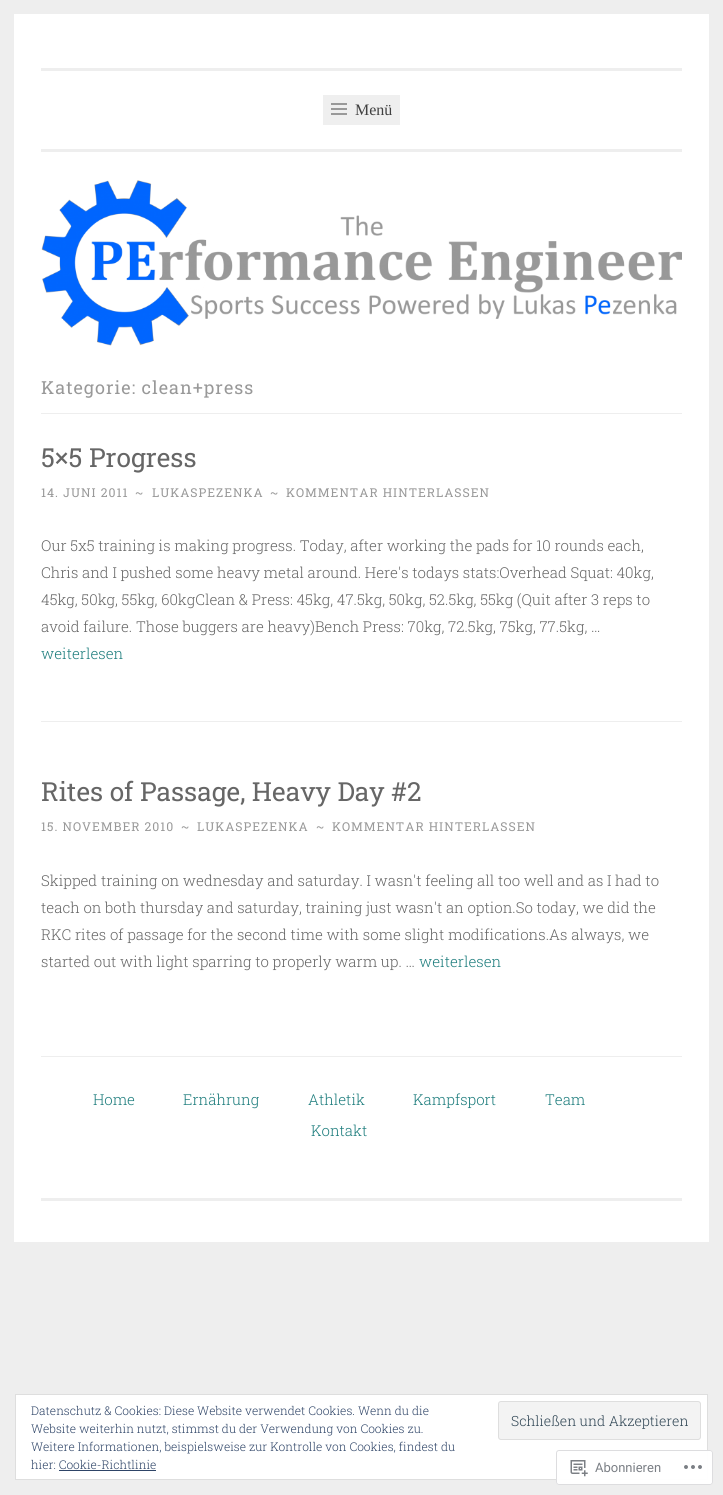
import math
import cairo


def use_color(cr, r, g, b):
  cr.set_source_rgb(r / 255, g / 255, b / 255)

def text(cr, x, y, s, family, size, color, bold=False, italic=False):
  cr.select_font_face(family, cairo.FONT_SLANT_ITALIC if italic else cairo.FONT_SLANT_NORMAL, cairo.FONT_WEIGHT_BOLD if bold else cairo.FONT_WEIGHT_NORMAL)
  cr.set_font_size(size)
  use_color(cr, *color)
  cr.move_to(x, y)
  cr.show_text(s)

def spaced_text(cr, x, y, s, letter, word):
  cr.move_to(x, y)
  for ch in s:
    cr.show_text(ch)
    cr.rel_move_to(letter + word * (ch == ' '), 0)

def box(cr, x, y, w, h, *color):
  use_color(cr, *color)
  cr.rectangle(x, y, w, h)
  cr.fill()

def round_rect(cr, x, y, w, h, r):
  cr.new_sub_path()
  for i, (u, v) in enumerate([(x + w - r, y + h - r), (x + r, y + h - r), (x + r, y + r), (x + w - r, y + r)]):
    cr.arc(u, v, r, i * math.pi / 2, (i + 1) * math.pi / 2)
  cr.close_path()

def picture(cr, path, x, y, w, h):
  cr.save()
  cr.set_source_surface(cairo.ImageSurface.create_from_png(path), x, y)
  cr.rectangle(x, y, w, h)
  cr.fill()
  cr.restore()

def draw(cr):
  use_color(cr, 238, 238, 238)
  cr.paint()
  box(cr, 14, 14, 695, 1228, 255, 255, 255)
  box(cr, 41, 149, 641, 3, 238, 238, 238)
  box(cr, 41, 68, 641, 3, 238, 238, 238)
  box(cr, 323, 95, 77, 30, 239, 239, 239)
  picture(cr, "img_01.png", 331, 103, 16, 12)
  picture(cr, "img_02.png", 41, 180, 641, 166)
  box(cr, 41, 413, 641, 1, 238, 238, 238)
  box(cr, 41, 721, 641, 1, 238, 238, 238)
  box(cr, 41, 1056, 641, 1, 238, 238, 238)
  box(cr, 41, 1198, 641, 3, 238, 238, 238)
  use_color(cr, 255, 255, 255)
  cr.rectangle(15.5, 1394.5, 692, 85)
  cr.fill_preserve()
  use_color(cr, 222, 222, 222)
  cr.set_line_width(1)
  cr.stroke()
  use_color(cr, 243, 243, 243)
  round_rect(cr, 498.5, 1401.5, 202, 38, 2.5)
  cr.fill_preserve()
  use_color(cr, 222, 222, 222)
  cr.stroke()
  box(cr, 59, 1470, 97, 1, 46, 68, 103)
  cr.set_source_rgba(1, 1, 1, 0.98)
  round_rect(cr, 556, 1450, 157, 35, 3)
  cr.fill()
  round_rect(cr, 556.5, 1450.5, 156, 34, 2.5)
  cr.set_source_rgba(0.863, 0.863, 0.871, 0.98)
  cr.stroke()
  picture(cr, "img_03.png", 570, 1460, 18, 17)
  picture(cr, "img_04.png", 684, 1465, 18, 4)
  text(cr, 355, 115, "Menü", "Liberation Serif", 16, (64, 64, 64))
  cr.select_font_face("Roboto Slab")
  cr.set_font_size(18)
  use_color(cr, 153, 153, 153)
  spaced_text(cr, 41, 394, "Kategorie: clean+press", 1, 0)
  text(cr, 41, 467, "5×5 Progress", "Roboto Slab", 26.25, (102, 102, 102))
  cr.set_font_size(12.2)
  use_color(cr, 153, 153, 153)
  spaced_text(cr, 41, 497, "14. JUNI 2011", 1, 0)
  spaced_text(cr, 135, 497, "~", 1, 0)
  spaced_text(cr, 152, 497, "LUKASPEZENKA", 1, 0)
  spaced_text(cr, 270, 497, "~", 1, 0)
  spaced_text(cr, 286, 497, "KOMMENTAR HINTERLASSEN", 1, 0)
  text(cr, 41, 551, "Our 5x5 training is making progress. Today, after working the pads for 10 rounds each,", "Roboto Slab Light", 15, (102, 102, 102))
  text(cr, 41, 578, "Chris and I pushed some heavy metal around. Here's todays stats:Overhead Squat: 40kg,", "Roboto Slab Light", 15, (102, 102, 102))
  text(cr, 41, 605, "45kg, 50kg, 55kg, 60kgClean & Press: 45kg, 47.5kg, 50kg, 52.5kg, 55kg (Quit after 3 reps to", "Roboto Slab Light", 15, (102, 102, 102))
  text(cr, 41, 632, "avoid failure. Those buggers are heavy)Bench Press: 70kg, 72.5kg, 75kg, 77.5kg, …", "Roboto Slab Light", 15, (102, 102, 102))
  text(cr, 41, 659, "weiterlesen", "Roboto Slab Light", 15, (28, 124, 124))
  text(cr, 41, 801, "Rites of Passage, Heavy Day #2", "Roboto Slab", 26.25, (102, 102, 102))
  cr.set_font_size(12.2)
  use_color(cr, 153, 153, 153)
  spaced_text(cr, 41, 831, "15. NOVEMBER 2010", 1, 0)
  spaced_text(cr, 181, 831, "~", 1, 0)
  spaced_text(cr, 197, 831, "LUKASPEZENKA", 1, 0)
  spaced_text(cr, 316, 831, "~", 1, 0)
  spaced_text(cr, 332, 831, "KOMMENTAR HINTERLASSEN", 1, 0)
  text(cr, 41, 886, "Skipped training on wednesday and saturday. I wasn't feeling all too well and as I had to", "Roboto Slab Light", 15, (102, 102, 102))
  text(cr, 41, 913, "teach on both thursday and saturday, training just wasn't an option.So today, we did the", "Roboto Slab Light", 15, (102, 102, 102))
  text(cr, 41, 940, "RKC rites of passage for the second time with some slight modifications.As always, we", "Roboto Slab Light", 15, (102, 102, 102))
  text(cr, 41, 967, "started out with light sparring to properly warm up. …", "Roboto Slab Light", 15, (102, 102, 102))
  text(cr, 419, 967, "weiterlesen", "Roboto Slab Light", 15, (28, 124, 124))
  text(cr, 93, 1105, "Home", "Roboto Slab Light", 15, (28, 124, 124))
  text(cr, 183, 1105, "Ernährung", "Roboto Slab Light", 15, (28, 124, 124))
  text(cr, 308, 1105, "Athletik", "Roboto Slab Light", 15, (28, 124, 124))
  text(cr, 413, 1105, "Kampfsport", "Roboto Slab Light", 15, (28, 124, 124))
  text(cr, 545, 1105, "Team", "Roboto Slab Light", 15, (28, 124, 124))
  text(cr, 311, 1136, "Kontakt", "Roboto Slab Light", 15, (28, 124, 124))
  text(cr, 31, 1415, "Datenschutz & Cookies: Diese Website verwendet Cookies. Wenn du die", "Roboto Slab Light", 12, (46, 68, 103))
  text(cr, 31, 1433, "Website weiterhin nutzt, stimmst du der Verwendung von Cookies zu.", "Roboto Slab Light", 12, (46, 68, 103))
  text(cr, 511, 1426, "Schließen und Akzeptieren", "Roboto Slab Light", 14, (46, 68, 83))
  text(cr, 31, 1451, "Weitere Informationen, beispielsweise zur Kontrolle von Cookies, findest du", "Roboto Slab Light", 12, (46, 68, 103))
  text(cr, 31, 1469, "hier: Cookie-Richtlinie", "Roboto Slab Light", 12, (46, 68, 103))
  text(cr, 595, 1472, "Abonnieren", "Roboto", 13, (123, 127, 133))


surface = cairo.ImageSurface(cairo.FORMAT_RGB24, 723, 1495)
cr = cairo.Context(surface)
options = cairo.FontOptions()
options.set_hint_metrics(cairo.HINT_METRICS_OFF)
options.set_hint_style(cairo.HINT_STYLE_NONE)
cr.set_font_options(options)
cr.set_miter_limit(4)
draw(cr)
surface.write_to_png("out.png")
